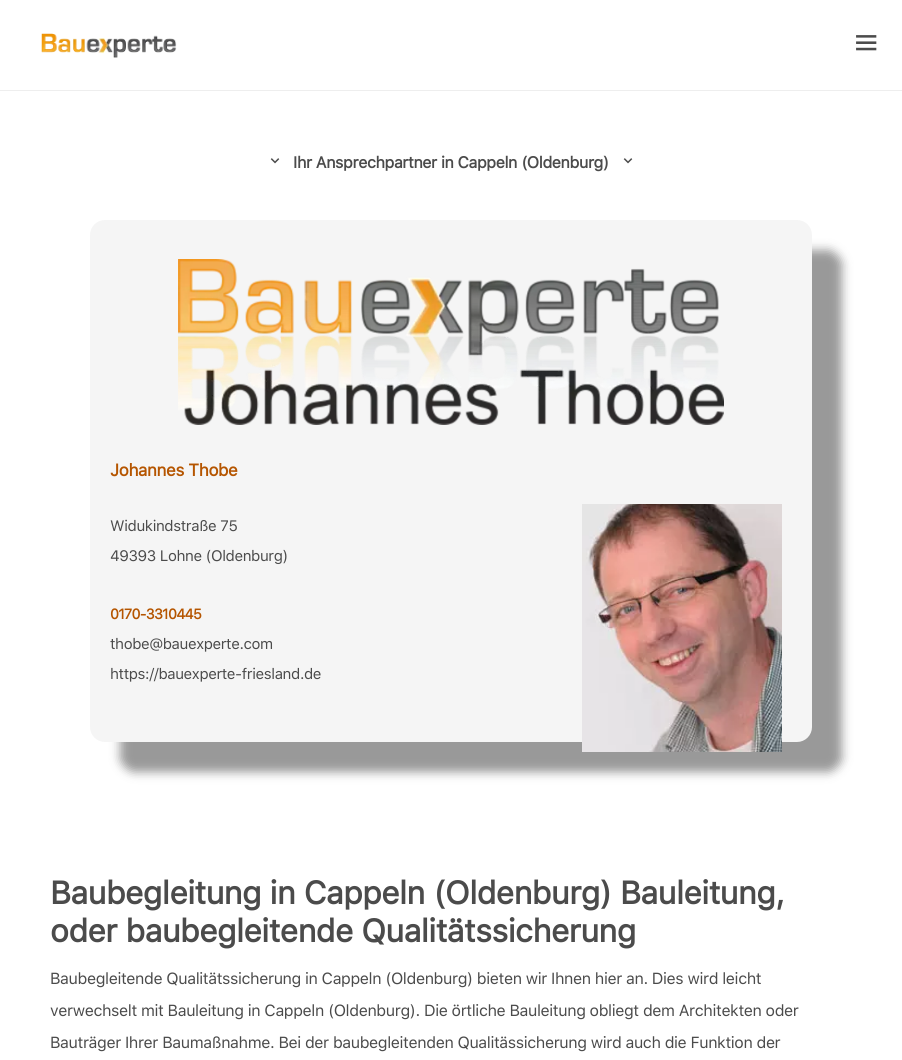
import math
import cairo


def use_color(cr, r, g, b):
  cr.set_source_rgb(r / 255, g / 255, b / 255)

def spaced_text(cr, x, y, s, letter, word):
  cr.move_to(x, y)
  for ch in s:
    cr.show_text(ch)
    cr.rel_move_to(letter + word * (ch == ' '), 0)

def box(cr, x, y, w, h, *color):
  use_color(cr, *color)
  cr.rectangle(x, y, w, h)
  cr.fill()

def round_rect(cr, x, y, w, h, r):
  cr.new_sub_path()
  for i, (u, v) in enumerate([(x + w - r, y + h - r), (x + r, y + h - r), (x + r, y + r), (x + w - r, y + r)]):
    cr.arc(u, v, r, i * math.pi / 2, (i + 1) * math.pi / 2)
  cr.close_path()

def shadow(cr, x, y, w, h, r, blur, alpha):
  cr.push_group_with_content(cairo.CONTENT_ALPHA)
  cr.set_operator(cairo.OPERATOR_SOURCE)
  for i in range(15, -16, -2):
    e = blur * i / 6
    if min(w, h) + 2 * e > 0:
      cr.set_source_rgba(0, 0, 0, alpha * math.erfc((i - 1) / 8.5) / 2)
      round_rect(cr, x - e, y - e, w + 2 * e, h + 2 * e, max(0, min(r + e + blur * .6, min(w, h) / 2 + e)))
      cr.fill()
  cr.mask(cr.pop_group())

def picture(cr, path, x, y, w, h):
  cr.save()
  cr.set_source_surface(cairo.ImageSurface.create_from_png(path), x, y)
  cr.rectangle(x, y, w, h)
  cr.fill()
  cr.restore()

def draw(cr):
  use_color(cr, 255, 255, 255)
  cr.paint()
  box(cr, 0, 90, 902, 1, 238, 238, 238)
  picture(cr, "img_01.png", 41, 33, 136, 25)
  picture(cr, "img_02.png", 856, 35, 21, 16)
  picture(cr, "img_03.png", 270, 158, 10, 6)
  picture(cr, "img_03.png", 623, 158, 10, 6)
  use_color(cr, 0, 0, 0)
  shadow(cr, 120, 250, 722, 522, 15, 5, 0.4)
  use_color(cr, 245, 245, 245)
  round_rect(cr, 97.5, 227.5, 707, 507, 7.5)
  cr.fill_preserve()
  cr.set_line_width(15)
  cr.stroke()
  picture(cr, "img_04.png", 178, 259, 546, 166)
  picture(cr, "img_05.png", 582, 504, 200, 248)
  cr.select_font_face("SF Pro Text", cairo.FONT_SLANT_NORMAL, cairo.FONT_WEIGHT_BOLD)
  cr.set_font_size(16)
  use_color(cr, 75, 75, 75)
  spaced_text(cr, 293, 168, "Ihr Ansprechpartner in Cappeln (Oldenburg)", -0.4, 0)
  cr.set_font_size(17)
  use_color(cr, 181, 85, 0)
  spaced_text(cr, 110, 476, "Johannes Thobe", -0.4, 0)
  cr.select_font_face("SF Pro Text")
  cr.set_font_size(15.1)
  use_color(cr, 75, 75, 75)
  spaced_text(cr, 110, 531, "Widukindstraße 75", -0.4, 0)
  spaced_text(cr, 110, 561, "49393 Lohne (Oldenburg)", -0.4, 0)
  cr.select_font_face("SF Pro Text", cairo.FONT_SLANT_NORMAL, cairo.FONT_WEIGHT_BOLD)
  cr.set_font_size(14.25)
  use_color(cr, 181, 85, 0)
  spaced_text(cr, 110, 619, "0170-3310445", -0.75, 0)
  cr.select_font_face("SF Pro Text")
  cr.set_font_size(15.1)
  use_color(cr, 75, 75, 75)
  spaced_text(cr, 110, 649, "thobe@bauexperte.com", -0.4, 0)
  spaced_text(cr, 110, 679, "https://bauexperte-friesland.de", -0.4, 0)
  cr.select_font_face("SF Pro Text", cairo.FONT_SLANT_NORMAL, cairo.FONT_WEIGHT_BOLD)
  cr.set_font_size(32)
  spaced_text(cr, 50, 904, "Baubegleitung in Cappeln (Oldenburg) Bauleitung,", -0.5, 0)
  spaced_text(cr, 50, 942, "oder baubegleitende Qualitätssicherung", -0.5, 0)
  cr.select_font_face("SF Pro Text")
  cr.set_font_size(16)
  spaced_text(cr, 50, 984, "Baubegleitende Qualitätssicherung in Cappeln (Oldenburg) bieten wir Ihnen hier an. Dies wird leicht", -0.4, 0)
  spaced_text(cr, 50, 1016, "verwechselt mit Bauleitung in Cappeln (Oldenburg). Die örtliche Bauleitung obliegt dem Architekten oder", -0.4, 0)
  spaced_text(cr, 50, 1048, "Bauträger Ihrer Baumaßnahme. Bei der baubegleitenden Qualitässicherung wird auch die Funktion der", -0.4, 0)


surface = cairo.ImageSurface(cairo.FORMAT_RGB24, 902, 1060)
cr = cairo.Context(surface)
options = cairo.FontOptions()
options.set_hint_metrics(cairo.HINT_METRICS_OFF)
options.set_hint_style(cairo.HINT_STYLE_NONE)
cr.set_font_options(options)
cr.set_miter_limit(4)
draw(cr)
surface.write_to_png("out.png")
